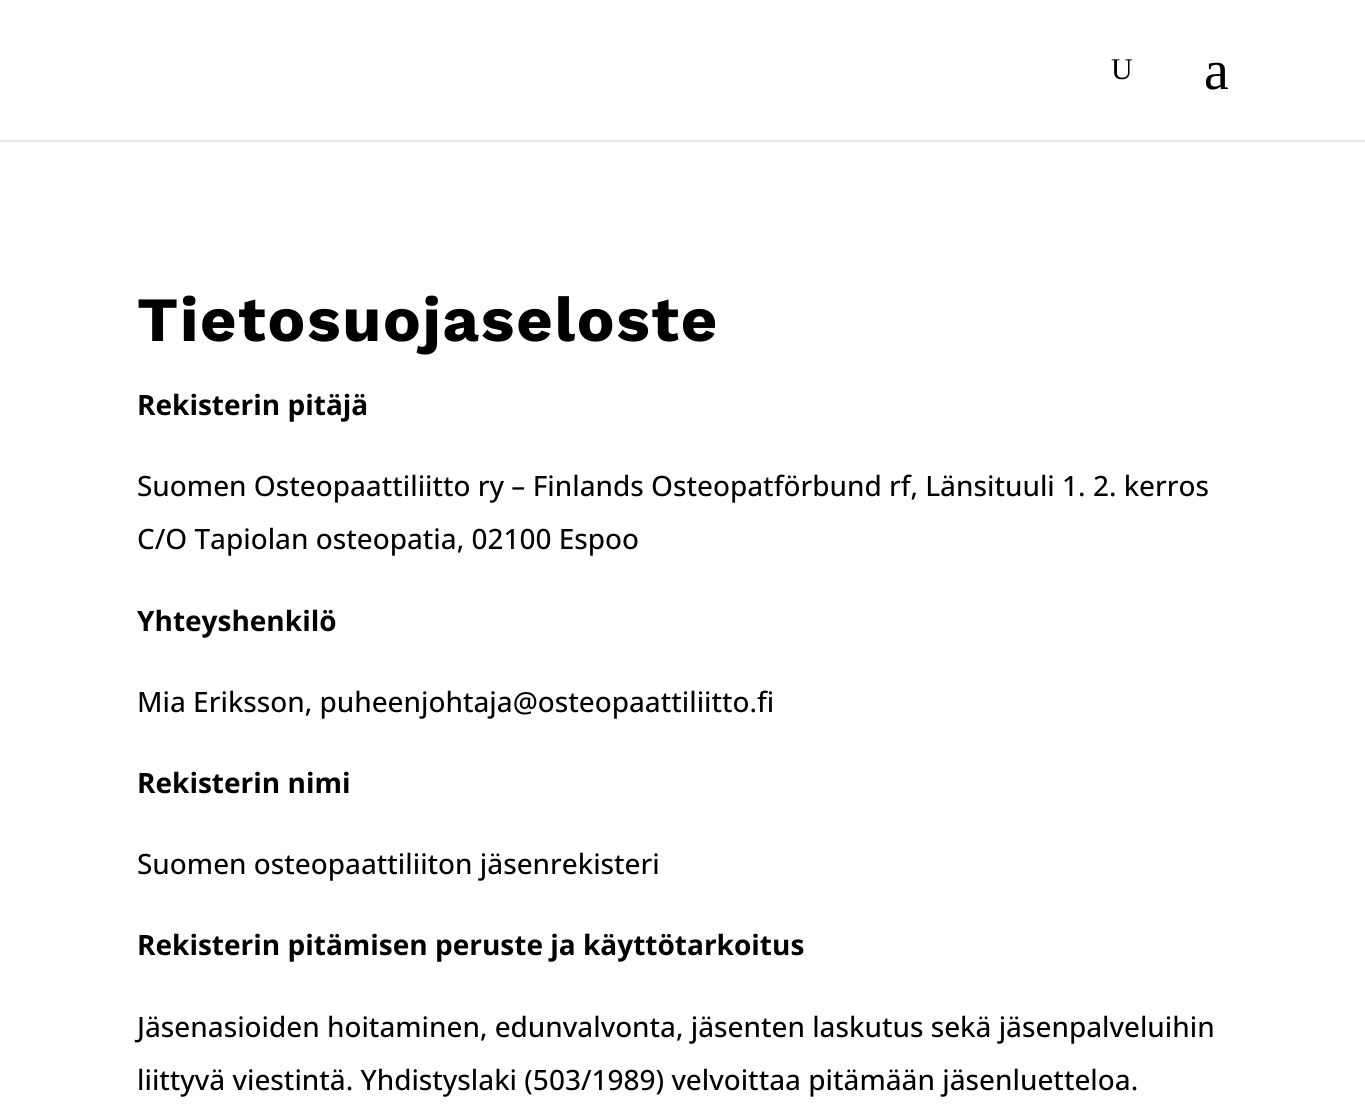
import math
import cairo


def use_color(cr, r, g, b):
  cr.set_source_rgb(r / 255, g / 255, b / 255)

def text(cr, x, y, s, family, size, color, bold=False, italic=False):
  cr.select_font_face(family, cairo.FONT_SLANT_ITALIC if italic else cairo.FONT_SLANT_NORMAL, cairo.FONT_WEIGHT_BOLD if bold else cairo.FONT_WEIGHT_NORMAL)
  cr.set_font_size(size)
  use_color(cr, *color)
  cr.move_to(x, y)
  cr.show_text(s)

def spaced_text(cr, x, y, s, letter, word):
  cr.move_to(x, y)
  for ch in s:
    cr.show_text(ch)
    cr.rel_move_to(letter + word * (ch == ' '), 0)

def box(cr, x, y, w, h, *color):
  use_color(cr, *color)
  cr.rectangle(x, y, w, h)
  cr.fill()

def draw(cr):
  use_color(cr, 255, 255, 255)
  cr.paint()
  box(cr, 0, 140, 1365, 2, 230, 230, 230)
  text(cr, 1111, 79, "U", "Liberation Serif", 30, (0, 0, 0))
  text(cr, 1204, 89, "a", "Liberation Serif", 56, (0, 0, 0))
  cr.select_font_face("Work Sans", cairo.FONT_SLANT_NORMAL, cairo.FONT_WEIGHT_BOLD)
  cr.set_font_size(63)
  spaced_text(cr, 137, 341, "Tietosuojaseloste", 1.75, 0)
  text(cr, 137, 415, "Rekisterin pitäjä", "Open Sans", 28, (0, 0, 0), bold=True)
  text(cr, 137, 496, "Suomen Osteopaattiliitto ry – Finlands Osteopatförbund rf, Länsituuli 1. 2. kerros", "Open Sans Medium", 28, (0, 0, 0))
  text(cr, 137, 549, "C/O Tapiolan osteopatia, 02100 Espoo", "Open Sans Medium", 28, (0, 0, 0))
  text(cr, 137, 631, "Yhteyshenkilö", "Open Sans", 28, (0, 0, 0), bold=True)
  text(cr, 137, 712, "Mia Eriksson, puheenjohtaja@osteopaattiliitto.fi", "Open Sans Medium", 28, (0, 0, 0))
  text(cr, 137, 793, "Rekisterin nimi", "Open Sans", 28, (0, 0, 0), bold=True)
  text(cr, 137, 874, "Suomen osteopaattiliiton jäsenrekisteri", "Open Sans Medium", 28, (0, 0, 0))
  text(cr, 137, 955, "Rekisterin pitämisen peruste ja käyttötarkoitus", "Open Sans", 28, (0, 0, 0), bold=True)
  text(cr, 137, 1037, "Jäsenasioiden hoitaminen, edunvalvonta, jäsenten laskutus sekä jäsenpalveluihin", "Open Sans Medium", 28, (0, 0, 0))
  text(cr, 137, 1090, "liittyvä viestintä. Yhdistyslaki (503/1989) velvoittaa pitämään jäsenluetteloa.", "Open Sans Medium", 28, (0, 0, 0))


surface = cairo.ImageSurface(cairo.FORMAT_RGB24, 1365, 1116)
cr = cairo.Context(surface)
options = cairo.FontOptions()
options.set_hint_metrics(cairo.HINT_METRICS_OFF)
options.set_hint_style(cairo.HINT_STYLE_NONE)
cr.set_font_options(options)
cr.set_miter_limit(4)
draw(cr)
surface.write_to_png("out.png")
